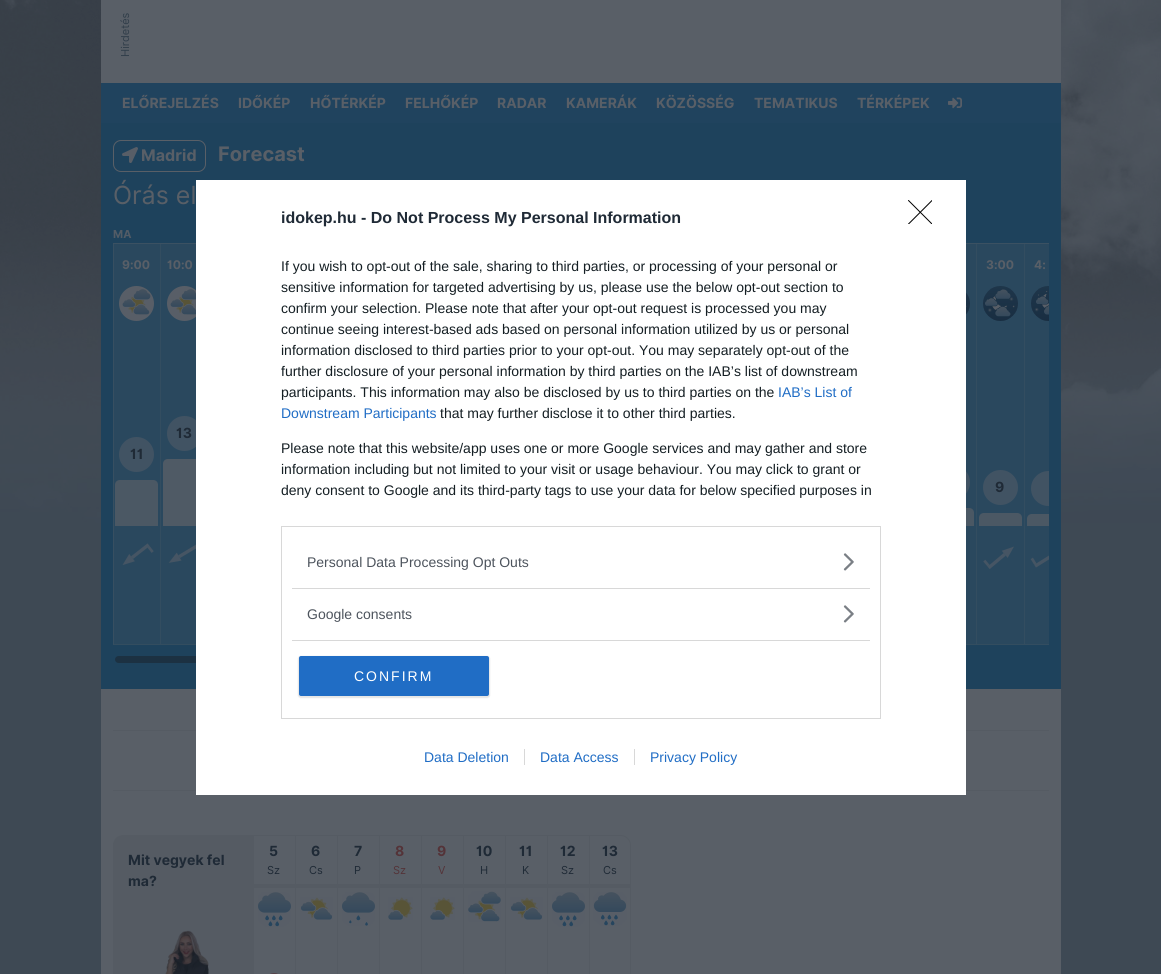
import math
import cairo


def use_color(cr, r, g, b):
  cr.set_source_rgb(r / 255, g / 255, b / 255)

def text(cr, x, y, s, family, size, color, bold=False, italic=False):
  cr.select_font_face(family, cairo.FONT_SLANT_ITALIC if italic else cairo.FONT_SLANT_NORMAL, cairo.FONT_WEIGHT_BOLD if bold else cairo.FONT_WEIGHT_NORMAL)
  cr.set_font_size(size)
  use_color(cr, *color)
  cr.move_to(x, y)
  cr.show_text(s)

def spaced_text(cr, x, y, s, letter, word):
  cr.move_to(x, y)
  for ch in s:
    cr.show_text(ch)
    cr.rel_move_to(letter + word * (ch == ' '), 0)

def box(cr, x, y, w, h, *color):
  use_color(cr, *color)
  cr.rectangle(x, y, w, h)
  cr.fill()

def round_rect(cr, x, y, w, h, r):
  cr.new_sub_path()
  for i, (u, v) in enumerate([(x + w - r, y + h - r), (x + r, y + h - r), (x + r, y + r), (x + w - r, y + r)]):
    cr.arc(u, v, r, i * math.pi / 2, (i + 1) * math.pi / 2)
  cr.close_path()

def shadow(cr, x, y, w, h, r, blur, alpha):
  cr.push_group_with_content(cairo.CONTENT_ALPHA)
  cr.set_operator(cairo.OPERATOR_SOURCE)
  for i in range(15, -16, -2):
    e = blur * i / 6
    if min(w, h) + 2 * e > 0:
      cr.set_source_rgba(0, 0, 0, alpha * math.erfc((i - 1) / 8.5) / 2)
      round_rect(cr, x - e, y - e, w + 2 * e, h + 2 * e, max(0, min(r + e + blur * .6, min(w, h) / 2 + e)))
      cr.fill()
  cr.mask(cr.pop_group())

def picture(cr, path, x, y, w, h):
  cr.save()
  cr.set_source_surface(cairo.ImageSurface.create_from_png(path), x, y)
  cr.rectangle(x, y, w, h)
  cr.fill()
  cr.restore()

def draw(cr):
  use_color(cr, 62, 73, 84)
  cr.paint()
  picture(cr, "img_01.png", 0, 0, 1161, 523)
  box(cr, 101, 0, 960, 83, 89, 95, 103)
  box(cr, 101, 83, 960, 40, 32, 67, 94)
  picture(cr, "img_02.png", 948, 97, 14, 12)
  box(cr, 101, 123, 960, 566, 30, 66, 92)
  round_rect(cr, 113.5, 140.5, 92, 31, 7.5)
  use_color(cr, 89, 95, 103)
  cr.set_line_width(1)
  cr.stroke()
  picture(cr, "img_03.png", 122, 147, 16, 16)
  box(cr, 113, 243, 936, 1, 59, 81, 98)
  box(cr, 113, 244, 83, 401, 42, 72, 94)
  use_color(cr, 51, 77, 96)
  cr.new_path()
  cr.move_to(161, 244)
  cr.line_to(161, 645)
  cr.line_to(160, 644)
  cr.line_to(160, 244)
  cr.close_path()
  cr.fill()
  cr.set_source_rgba(0.349, 0.373, 0.404, 0.2)
  cr.new_path()
  cr.move_to(161, 645)
  cr.line_to(113, 645)
  cr.line_to(114, 644)
  cr.line_to(160, 644)
  cr.close_path()
  cr.fill()
  cr.set_source_rgba(0.349, 0.373, 0.404, 0.3)
  cr.new_path()
  cr.move_to(113, 645)
  cr.line_to(113, 244)
  cr.line_to(114, 244)
  cr.line_to(114, 644)
  cr.close_path()
  cr.fill()
  picture(cr, "img_04.png", 119, 286, 35, 35)
  use_color(cr, 65, 83, 99)
  cr.arc(136.5, 454.5, 17.5, 0, 2 * math.pi)
  cr.fill()
  use_color(cr, 75, 88, 100)
  cr.new_path()
  cr.move_to(120, 480)
  cr.line_to(153, 480)
  cr.curve_to(156, 480, 158, 482, 158, 485)
  cr.line_to(158, 526)
  cr.line_to(115, 526)
  cr.line_to(115, 485)
  cr.curve_to(115, 482, 117, 480, 120, 480)
  cr.close_path()
  cr.fill()
  picture(cr, "img_05.png", 122, 543, 32, 22)
  cr.set_source_rgba(0.349, 0.373, 0.404, 0.2)
  cr.new_path()
  cr.move_to(209, 645)
  cr.line_to(161, 645)
  cr.line_to(161, 644)
  cr.line_to(208, 644)
  cr.close_path()
  cr.fill()
  picture(cr, "img_06.png", 167, 286, 29, 35)
  use_color(cr, 65, 83, 99)
  cr.arc(184.5, 433.5, 17.5, 0, 2 * math.pi)
  cr.fill()
  use_color(cr, 79, 90, 101)
  cr.new_path()
  cr.move_to(168, 459)
  cr.line_to(201, 459)
  cr.curve_to(204, 459, 206, 461, 206, 464)
  cr.line_to(206, 526)
  cr.line_to(163, 526)
  cr.line_to(163, 464)
  cr.curve_to(163, 461, 165, 459, 168, 459)
  cr.close_path()
  cr.fill()
  picture(cr, "img_07.png", 168, 544, 28, 19)
  box(cr, 966, 244, 59, 401, 42, 72, 94)
  use_color(cr, 51, 77, 96)
  cr.new_path()
  cr.move_to(977, 244)
  cr.line_to(977, 645)
  cr.line_to(976, 644)
  cr.line_to(976, 244)
  cr.close_path()
  cr.fill()
  cr.set_source_rgba(0.349, 0.373, 0.404, 0.2)
  cr.new_path()
  cr.move_to(977, 645)
  cr.line_to(929, 645)
  cr.line_to(929, 644)
  cr.line_to(976, 644)
  cr.close_path()
  cr.fill()
  picture(cr, "img_08.png", 966, 292, 4, 23)
  use_color(cr, 65, 83, 99)
  cr.arc(952.5, 482.5, 17.5, 0, 2 * math.pi)
  cr.fill()
  use_color(cr, 75, 88, 100)
  cr.new_path()
  cr.move_to(936, 508)
  cr.line_to(969, 508)
  cr.curve_to(972, 508, 974, 510, 974, 513)
  cr.line_to(974, 526)
  cr.line_to(931, 526)
  cr.line_to(931, 513)
  cr.curve_to(931, 510, 933, 508, 936, 508)
  cr.close_path()
  cr.fill()
  use_color(cr, 51, 77, 96)
  cr.new_path()
  cr.move_to(1025, 244)
  cr.line_to(1025, 645)
  cr.line_to(1024, 644)
  cr.line_to(1024, 244)
  cr.close_path()
  cr.fill()
  cr.set_source_rgba(0.349, 0.373, 0.404, 0.2)
  cr.new_path()
  cr.move_to(1025, 645)
  cr.line_to(977, 645)
  cr.line_to(977, 644)
  cr.line_to(1024, 644)
  cr.close_path()
  cr.fill()
  picture(cr, "img_09.png", 983, 286, 35, 35)
  use_color(cr, 65, 83, 99)
  cr.arc(1000.5, 487.5, 17.5, 0, 2 * math.pi)
  cr.fill()
  use_color(cr, 75, 88, 100)
  cr.new_path()
  cr.move_to(984, 513)
  cr.line_to(1017, 513)
  cr.curve_to(1020, 513, 1022, 515, 1022, 518)
  cr.line_to(1022, 526)
  cr.line_to(979, 526)
  cr.line_to(979, 518)
  cr.curve_to(979, 515, 981, 513, 984, 513)
  cr.close_path()
  cr.fill()
  picture(cr, "img_10.png", 983, 546, 31, 23)
  box(cr, 1025, 244, 24, 400, 42, 72, 94)
  cr.save()
  cr.rectangle(113, 226, 936, 439)
  cr.clip()
  use_color(cr, 51, 77, 96)
  cr.new_path()
  cr.move_to(1073, 645)
  cr.line_to(1025, 645)
  cr.line_to(1025, 644)
  cr.line_to(1072, 644)
  cr.close_path()
  cr.fill()
  cr.restore()
  picture(cr, "img_11.png", 1031, 286, 18, 35)
  cr.save()
  cr.rectangle(113, 226, 936, 439)
  cr.clip()
  use_color(cr, 65, 83, 99)
  cr.arc(1048.5, 488.5, 17.5, 0, 2 * math.pi)
  cr.fill()
  cr.restore()
  use_color(cr, 75, 88, 100)
  cr.new_path()
  cr.move_to(1032, 514)
  cr.line_to(1049, 514)
  cr.line_to(1049, 526)
  cr.line_to(1027, 526)
  cr.line_to(1027, 519)
  cr.curve_to(1027, 516, 1029, 514, 1032, 514)
  cr.close_path()
  cr.fill()
  picture(cr, "img_12.png", 1030, 555, 19, 13)
  use_color(cr, 28, 49, 66)
  round_rect(cr, 115, 656, 276, 7, 3.5)
  cr.fill()
  box(cr, 101, 689, 960, 285, 89, 95, 103)
  box(cr, 113, 730, 936, 1, 85, 91, 99)
  box(cr, 113, 790, 936, 1, 85, 91, 99)
  box(cr, 196, 180, 770, 615, 255, 255, 255)
  cr.rectangle(281.5, 526.5, 599, 192)
  use_color(cr, 216, 216, 216)
  cr.stroke()
  box(cr, 292, 588, 578, 1, 216, 216, 216)
  picture(cr, "img_13.png", 843, 553, 11, 18)
  box(cr, 292, 640, 578, 1, 216, 216, 216)
  picture(cr, "img_13.png", 843, 605, 11, 18)
  use_color(cr, 0, 0, 0)
  shadow(cr, 298, 656, 192, 42, 3, 0.5, 0.1)
  use_color(cr, 32, 109, 197)
  round_rect(cr, 299, 656, 190, 40, 2)
  cr.fill()
  cr.save()
  cr.rectangle(908, 200, 24, 24)
  cr.clip()
  cr.new_path()
  cr.move_to(908.5, 200.5)
  cr.line_to(932, 224)
  cr.move_to(932, 200.5)
  cr.line_to(908.5, 224)
  use_color(cr, 0, 0, 0)
  cr.set_line_cap(cairo.LINE_CAP_ROUND)
  cr.set_line_join(cairo.LINE_JOIN_ROUND)
  cr.stroke()
  cr.restore()
  box(cr, 524, 749, 1, 16, 216, 216, 216)
  box(cr, 634, 749, 1, 16, 216, 216, 216)
  use_color(cr, 85, 91, 99)
  cr.new_path()
  cr.move_to(123, 835)
  cr.line_to(253, 835)
  cr.line_to(253, 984)
  cr.line_to(123, 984)
  cr.curve_to(117.5, 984, 113, 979.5, 113, 974)
  cr.line_to(113, 845)
  cr.curve_to(113, 839.5, 117.5, 835, 123, 835)
  cr.close_path()
  cr.fill()
  picture(cr, "img_14.png", 165, 930, 44, 44)
  box(cr, 253, 835, 336, 1, 85, 91, 99)
  box(cr, 253, 835, 1, 139, 85, 91, 99)
  box(cr, 254, 884, 41, 4, 85, 91, 99)
  picture(cr, "img_15.png", 258, 892, 33, 35)
  use_color(cr, 84, 51, 56)
  cr.new_path()
  cr.move_to(283, 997.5)
  cr.curve_to(294, 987, 283, 968.5, 268.5, 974.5)
  cr.curve_to(265.5, 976, 263, 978.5, 261.5, 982)
  cr.curve_to(257, 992.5, 267, 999.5, 274, 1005.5)
  cr.close_path()
  cr.fill()
  box(cr, 295, 835, 1, 139, 85, 91, 99)
  box(cr, 296, 884, 41, 4, 85, 91, 99)
  picture(cr, "img_16.png", 300, 897, 33, 23)
  box(cr, 337, 835, 1, 139, 85, 91, 99)
  box(cr, 338, 884, 41, 4, 85, 91, 99)
  picture(cr, "img_17.png", 342, 892, 33, 34)
  box(cr, 379, 835, 1, 139, 85, 91, 99)
  box(cr, 380, 884, 41, 4, 85, 91, 99)
  picture(cr, "img_18.png", 388, 897, 25, 23)
  box(cr, 421, 835, 1, 139, 85, 91, 99)
  box(cr, 422, 884, 41, 4, 85, 91, 99)
  picture(cr, "img_18.png", 430, 897, 25, 23)
  box(cr, 463, 835, 1, 139, 85, 91, 99)
  box(cr, 464, 884, 41, 4, 85, 91, 99)
  picture(cr, "img_19.png", 468, 891, 33, 31)
  box(cr, 505, 835, 1, 139, 85, 91, 99)
  box(cr, 506, 884, 41, 4, 85, 91, 99)
  picture(cr, "img_16.png", 510, 897, 33, 23)
  box(cr, 547, 835, 1, 139, 85, 91, 99)
  box(cr, 548, 884, 41, 4, 85, 91, 99)
  picture(cr, "img_15.png", 552, 892, 33, 35)
  cr.new_path()
  cr.move_to(589.5, 835.5)
  cr.line_to(621, 835.5)
  cr.curve_to(626, 835.5, 630.5, 840, 630.5, 845)
  cr.line_to(630.5, 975)
  cr.curve_to(630.5, 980, 626, 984.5, 621, 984.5)
  cr.line_to(589.5, 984.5)
  cr.close_path()
  cr.stroke()
  box(cr, 590, 884, 40, 4, 85, 91, 99)
  picture(cr, "img_20.png", 593, 892, 34, 34)
  cr.save()
  cr.translate(129, 57)
  cr.rotate(-90 * math.pi / 180)
  text(cr, 0, 0, "Hirdetés", "Inter", 11, (49, 62, 74))
  cr.restore()
  text(cr, 122, 108, "ELŐREJELZÉS", "Inter", 14, (89, 95, 103), bold=True)
  text(cr, 238, 108, "IDŐKÉP", "Inter", 14, (89, 95, 103), bold=True)
  text(cr, 310, 108, "HŐTÉRKÉP", "Inter", 14, (89, 95, 103), bold=True)
  text(cr, 405, 108, "FELHŐKÉP", "Inter", 14, (89, 95, 103), bold=True)
  text(cr, 497, 108, "RADAR", "Inter", 14, (89, 95, 103), bold=True)
  text(cr, 566, 108, "KAMERÁK", "Inter", 14, (89, 95, 103), bold=True)
  text(cr, 656, 108, "KÖZÖSSÉG", "Inter", 14, (89, 95, 103), bold=True)
  text(cr, 754, 108, "TEMATIKUS", "Inter", 14, (89, 95, 103), bold=True)
  text(cr, 857, 108, "TÉRKÉPEK", "Inter", 14, (89, 95, 103), bold=True)
  text(cr, 141, 161, "Madrid", "Inter", 16, (89, 95, 103), bold=True)
  text(cr, 218, 161, "Forecast", "Inter", 20, (89, 95, 103), bold=True)
  text(cr, 113, 204, "Órás el", "Inter", 25, (89, 95, 103))
  text(cr, 113, 238, "MA", "Inter", 11, (83, 92, 102), bold=True)
  text(cr, 122, 269, "9:00", "Inter", 12, (89, 95, 103), bold=True)
  text(cr, 130, 459, "11", "Inter", 14, (31, 42, 54), bold=True)
  text(cr, 167, 269, "10:0", "Inter", 12, (89, 95, 103), bold=True)
  text(cr, 176, 438, "13", "Inter", 14, (31, 42, 54), bold=True)
  text(cr, 986, 269, "3:00", "Inter", 12, (89, 95, 103), bold=True)
  text(cr, 995, 492, "9", "Inter", 14, (31, 42, 54), bold=True)
  text(cr, 1034, 269, "4:", "Inter", 12, (89, 95, 103), bold=True)
  text(cr, 281, 223, "idokep.hu - Do Not Process My Personal Information", "Liberation Sans", 16, (31, 42, 54), bold=True)
  text(cr, 281, 271, "If you wish to opt-out of the sale, sharing to third parties, or processing of your personal or", "Liberation Sans", 14, (20, 30, 35))
  text(cr, 281, 292, "sensitive information for targeted advertising by us, please use the below opt-out section to", "Liberation Sans", 14, (20, 30, 35))
  text(cr, 281, 313, "confirm your selection. Please note that after your opt-out request is processed you may", "Liberation Sans", 14, (20, 30, 35))
  text(cr, 281, 334, "continue seeing interest-based ads based on personal information utilized by us or personal", "Liberation Sans", 14, (20, 30, 35))
  text(cr, 281, 355, "information disclosed to third parties prior to your opt-out. You may separately opt-out of the", "Liberation Sans", 14, (20, 30, 35))
  text(cr, 281, 376, "further disclosure of your personal information by third parties on the IAB’s list of downstream", "Liberation Sans", 14, (20, 30, 35))
  text(cr, 281, 397, "participants. This information may also be disclosed by us to third parties on the", "Liberation Sans", 14, (20, 30, 35))
  text(cr, 778, 397, "IAB’s List of", "Liberation Sans", 14, (32, 109, 197))
  text(cr, 281, 418, "Downstream Participants", "Liberation Sans", 14, (32, 109, 197))
  text(cr, 440, 418, "that may further disclose it to other third parties.", "Liberation Sans", 14, (20, 30, 35))
  text(cr, 281, 453, "Please note that this website/app uses one or more Google services and may gather and store", "Liberation Sans", 14, (20, 30, 35))
  text(cr, 281, 474, "information including but not limited to your visit or usage behaviour. You may click to grant or", "Liberation Sans", 14, (20, 30, 35))
  text(cr, 281, 495, "deny consent to Google and its third-party tags to use your data for below specified purposes in", "Liberation Sans", 14, (20, 30, 35))
  text(cr, 307, 567, "Personal Data Processing Opt Outs", "Liberation Sans", 14, (77, 84, 93))
  text(cr, 307, 619, "Google consents", "Liberation Sans", 14, (77, 84, 93))
  use_color(cr, 255, 255, 255)
  spaced_text(cr, 354, 681, "CONFIRM", 2, 0)
  text(cr, 424, 762, "Data Deletion", "Liberation Sans", 14, (32, 109, 197))
  text(cr, 540, 762, "Data Access", "Liberation Sans", 14, (32, 109, 197))
  text(cr, 650, 762, "Privacy Policy", "Liberation Sans", 14, (32, 109, 197))
  text(cr, 128, 865, "Mit vegyek fel", "Inter", 14, (31, 42, 54), bold=True)
  text(cr, 128, 886, "ma?", "Inter", 14, (31, 42, 54), bold=True)
  text(cr, 269, 856, "5", "Inter", 14, (31, 42, 54), bold=True)
  text(cr, 267, 874, "Sz", "Inter", 11, (31, 42, 54))
  text(cr, 311, 856, "6", "Inter", 14, (31, 42, 54), bold=True)
  text(cr, 309, 874, "Cs", "Inter", 11, (31, 42, 54))
  text(cr, 354, 856, "7", "Inter", 14, (31, 42, 54), bold=True)
  text(cr, 354, 874, "P", "Inter", 11, (31, 42, 54))
  text(cr, 395, 856, "8", "Inter", 14, (84, 51, 56), bold=True)
  text(cr, 393, 874, "Sz", "Inter", 11, (84, 51, 56))
  text(cr, 437, 856, "9", "Inter", 14, (84, 51, 56), bold=True)
  text(cr, 438, 874, "V", "Inter", 11, (84, 51, 56))
  text(cr, 476, 856, "10", "Inter", 14, (31, 42, 54), bold=True)
  text(cr, 480, 874, "H", "Inter", 11, (31, 42, 54))
  text(cr, 519, 856, "11", "Inter", 14, (31, 42, 54), bold=True)
  text(cr, 522, 874, "K", "Inter", 11, (31, 42, 54))
  text(cr, 560, 856, "12", "Inter", 14, (31, 42, 54), bold=True)
  text(cr, 561, 874, "Sz", "Inter", 11, (31, 42, 54))
  text(cr, 602, 856, "13", "Inter", 14, (31, 42, 54), bold=True)
  text(cr, 603, 874, "Cs", "Inter", 11, (31, 42, 54))


surface = cairo.ImageSurface(cairo.FORMAT_RGB24, 1161, 974)
cr = cairo.Context(surface)
options = cairo.FontOptions()
options.set_hint_metrics(cairo.HINT_METRICS_OFF)
options.set_hint_style(cairo.HINT_STYLE_NONE)
cr.set_font_options(options)
cr.set_miter_limit(4)
draw(cr)
surface.write_to_png("out.png")
